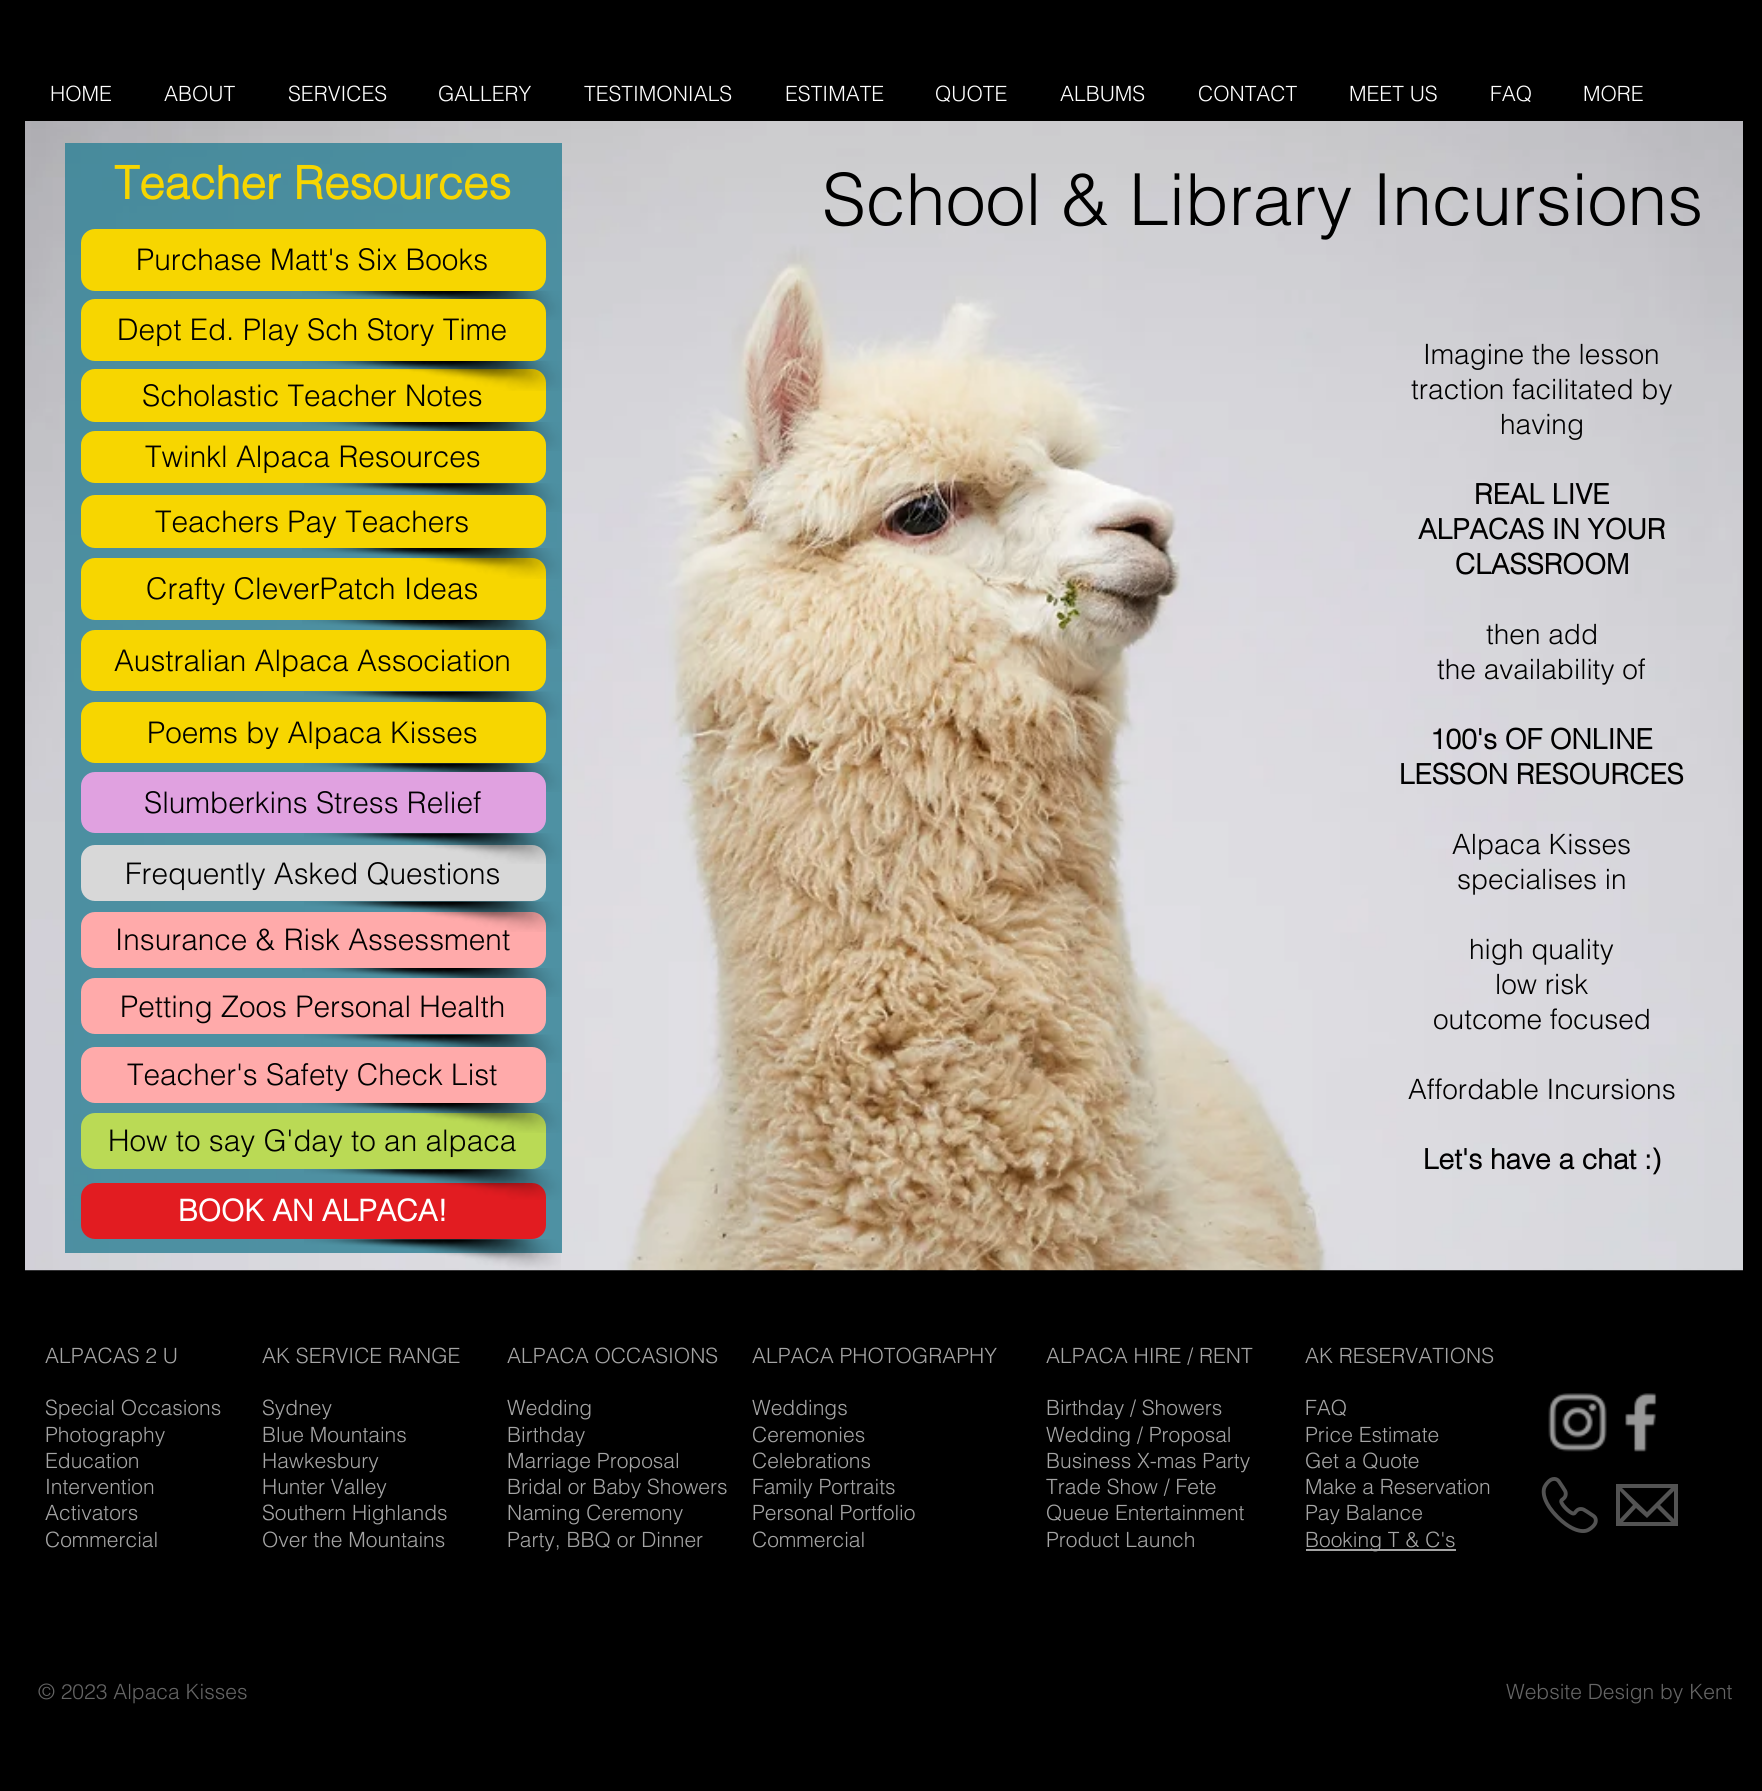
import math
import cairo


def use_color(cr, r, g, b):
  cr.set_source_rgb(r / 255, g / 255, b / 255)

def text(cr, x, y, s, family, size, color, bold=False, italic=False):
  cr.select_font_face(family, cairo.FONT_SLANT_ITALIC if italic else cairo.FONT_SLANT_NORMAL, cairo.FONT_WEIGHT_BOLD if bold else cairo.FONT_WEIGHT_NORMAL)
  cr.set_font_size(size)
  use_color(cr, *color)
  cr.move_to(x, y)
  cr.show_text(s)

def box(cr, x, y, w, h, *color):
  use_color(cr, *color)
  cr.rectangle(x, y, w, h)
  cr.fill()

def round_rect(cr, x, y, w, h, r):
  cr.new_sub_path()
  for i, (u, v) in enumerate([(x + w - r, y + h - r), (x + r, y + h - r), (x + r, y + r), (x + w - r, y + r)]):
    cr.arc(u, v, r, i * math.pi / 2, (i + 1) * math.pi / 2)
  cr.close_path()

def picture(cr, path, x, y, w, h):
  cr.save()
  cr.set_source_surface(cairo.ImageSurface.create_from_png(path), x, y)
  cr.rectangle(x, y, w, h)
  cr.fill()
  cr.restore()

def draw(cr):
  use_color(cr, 0, 0, 0)
  cr.paint()
  picture(cr, "img_01.png", 25, 121, 1718, 1150)
  cr.set_source_rgba(0.196, 0.51, 0.592, 0.83)
  cr.rectangle(65, 143, 497, 1110)
  cr.fill()
  picture(cr, "img_02.png", 302, 290, 259, 30)
  use_color(cr, 247, 214, 0)
  round_rect(cr, 81, 229, 465, 62, 14)
  cr.fill()
  round_rect(cr, 81, 369, 465, 53, 14)
  cr.fill()
  picture(cr, "img_04.png", 302, 422, 259, 29)
  round_rect(cr, 81, 431, 465, 52, 14)
  cr.fill()
  picture(cr, "img_05.png", 304, 483, 257, 29)
  round_rect(cr, 81, 495, 465, 53, 14)
  cr.fill()
  picture(cr, "img_07.png", 302, 619, 259, 30)
  round_rect(cr, 81, 558, 465, 62, 14)
  cr.fill()
  round_rect(cr, 81, 630, 465, 61, 14)
  cr.fill()
  picture(cr, "img_08.png", 304, 691, 257, 29)
  round_rect(cr, 81, 702, 465, 61, 14)
  cr.fill()
  picture(cr, "img_09.png", 304, 763, 257, 29)
  use_color(cr, 224, 161, 224)
  round_rect(cr, 81, 772, 465, 61, 14)
  cr.fill()
  use_color(cr, 216, 216, 216)
  round_rect(cr, 81, 845, 465, 56, 14)
  cr.fill()
  use_color(cr, 255, 170, 170)
  round_rect(cr, 81, 912, 465, 56, 14)
  cr.fill()
  picture(cr, "img_12.png", 302, 968, 259, 29)
  round_rect(cr, 81, 978, 465, 56, 14)
  cr.fill()
  picture(cr, "img_13.png", 304, 1034, 257, 29)
  use_color(cr, 186, 218, 85)
  round_rect(cr, 81, 1113, 465, 56, 14)
  cr.fill()
  use_color(cr, 226, 28, 33)
  round_rect(cr, 81, 1183, 465, 56, 14)
  cr.fill()
  picture(cr, "img_16.png", 304, 1239, 257, 31)
  box(cr, 1306, 1549, 150, 2, 165, 165, 165)
  picture(cr, "img_17.png", 1548, 1393, 59, 59)
  picture(cr, "img_18.png", 1625, 1393, 32, 59)
  picture(cr, "img_19.png", 1541, 1477, 57, 56)
  use_color(cr, 83, 83, 83)
  cr.new_path()
  cr.move_to(1616, 1484)
  cr.line_to(1616, 1526)
  cr.line_to(1678, 1526)
  cr.line_to(1678, 1484)
  cr.close_path()
  cr.move_to(1647, 1512)
  cr.line_to(1622, 1488)
  cr.line_to(1671, 1488)
  cr.close_path()
  cr.move_to(1633, 1505)
  cr.line_to(1620, 1519)
  cr.line_to(1620, 1491)
  cr.close_path()
  cr.move_to(1636, 1508)
  cr.line_to(1647, 1518)
  cr.line_to(1657, 1508)
  cr.line_to(1671, 1522)
  cr.line_to(1623, 1522)
  cr.close_path()
  cr.move_to(1660, 1505)
  cr.line_to(1674, 1491)
  cr.line_to(1674, 1519)
  cr.close_path()
  cr.fill()
  text(cr, 50, 101, "HOME", "helvetica Light", 21, (255, 255, 255))
  text(cr, 164, 101, "ABOUT", "helvetica Light", 21, (255, 255, 255))
  text(cr, 288, 101, "SERVICES", "helvetica Light", 21, (255, 255, 255))
  text(cr, 438, 101, "GALLERY", "helvetica Light", 21, (255, 255, 255))
  text(cr, 584, 101, "TESTIMONIALS", "helvetica Light", 21, (255, 255, 255))
  text(cr, 785, 101, "ESTIMATE", "helvetica Light", 21, (255, 255, 255))
  text(cr, 935, 101, "QUOTE", "helvetica Light", 21, (255, 255, 255))
  text(cr, 1060, 101, "ALBUMS", "helvetica Light", 21, (255, 255, 255))
  text(cr, 1198, 101, "CONTACT", "helvetica Light", 21, (255, 255, 255))
  text(cr, 1349, 101, "MEET US", "helvetica Light", 21, (255, 255, 255))
  text(cr, 1490, 101, "FAQ", "helvetica Light", 21, (255, 255, 255))
  text(cr, 1583, 101, "MORE", "helvetica Light", 21, (255, 255, 255))
  text(cr, 114, 199, "Teacher Resources", "helvetica", 45.5, (247, 214, 0), bold=True)
  text(cr, 822, 225, "School & Library Incursions", "helvetica Light", 71.75, (0, 0, 0))
  text(cr, 136, 270, "Purchase Matt's Six Books", "helvetica Light", 29.75, (0, 0, 0))
  text(cr, 142, 406, "Scholastic Teacher Notes", "helvetica Light", 29.75, (0, 0, 0))
  picture(cr, "img_03.png", 302, 360, 259, 31)
  use_color(cr, 247, 214, 0)
  round_rect(cr, 81, 299, 465, 62, 14)
  cr.fill()
  text(cr, 117, 340, "Dept Ed. Play Sch Story Time", "helvetica Light", 29.75, (0, 0, 0))
  text(cr, 1423, 364, "Imagine the lesson", "helvetica Light", 28, (0, 0, 0))
  text(cr, 1411, 399, "traction facilitated by", "helvetica Light", 28, (0, 0, 0))
  text(cr, 1500, 434, "having", "helvetica Light", 28, (0, 0, 0))
  text(cr, 1474, 504, "REAL LIVE", "helvetica", 28, (0, 0, 0), bold=True)
  text(cr, 1418, 539, "ALPACAS IN YOUR", "helvetica", 28, (0, 0, 0), bold=True)
  text(cr, 1455, 574, "CLASSROOM", "helvetica", 28, (0, 0, 0), bold=True)
  text(cr, 1486, 644, "then add", "helvetica Light", 28, (0, 0, 0))
  text(cr, 1437, 679, "the availability of", "helvetica Light", 28, (0, 0, 0))
  text(cr, 1430, 749, "100's OF ONLINE", "helvetica", 28, (0, 0, 0), bold=True)
  text(cr, 1399, 784, "LESSON RESOURCES", "helvetica", 28, (0, 0, 0), bold=True)
  text(cr, 1452, 854, "Alpaca Kisses", "helvetica Light", 28, (0, 0, 0))
  text(cr, 1457, 889, "specialises in", "helvetica Light", 28, (0, 0, 0))
  text(cr, 1469, 959, "high quality", "helvetica Light", 28, (0, 0, 0))
  text(cr, 1495, 994, "low risk", "helvetica Light", 28, (0, 0, 0))
  text(cr, 1433, 1029, "outcome focused", "helvetica Light", 28, (0, 0, 0))
  text(cr, 1408, 1099, "Affordable Incursions", "helvetica Light", 28, (0, 0, 0))
  text(cr, 1423, 1169, "Let's have a chat :)", "helvetica", 28, (0, 0, 0), bold=True)
  text(cr, 145, 467, "Twinkl Alpaca Resources", "helvetica Light", 29.75, (0, 0, 0))
  text(cr, 155, 532, "Teachers Pay Teachers", "helvetica Light", 29.75, (0, 0, 0))
  text(cr, 146, 599, "Crafty CleverPatch Ideas", "helvetica Light", 29.75, (0, 0, 0))
  picture(cr, "img_06.png", 302, 548, 259, 31)
  text(cr, 114, 671, "Australian Alpaca Association", "helvetica Light", 29.75, (0, 0, 0))
  text(cr, 147, 743, "Poems by Alpaca Kisses", "helvetica Light", 29.75, (0, 0, 0))
  text(cr, 144, 813, "Slumberkins Stress Relief", "helvetica Light", 29.75, (0, 0, 0))
  text(cr, 125, 884, "Frequently Asked Questions", "helvetica Light", 29.75, (0, 0, 0))
  picture(cr, "img_10.png", 304, 833, 257, 31)
  text(cr, 115, 950, "Insurance & Risk Assessment", "helvetica Light", 29.75, (0, 0, 0))
  picture(cr, "img_11.png", 304, 901, 257, 31)
  text(cr, 120, 1017, "Petting Zoos Personal Health", "helvetica Light", 29.75, (0, 0, 0))
  text(cr, 108, 1151, "How to say G'day to an alpaca", "helvetica Light", 29.75, (0, 0, 0))
  picture(cr, "img_14.png", 302, 1102, 259, 31)
  use_color(cr, 255, 170, 170)
  round_rect(cr, 81, 1047, 465, 56, 14)
  cr.fill()
  text(cr, 127, 1085, "Teacher's Safety Check List", "helvetica Light", 29.75, (0, 0, 0))
  text(cr, 178, 1221, "BOOK AN ALPACA!", "helvetica", 29.75, (255, 255, 255), bold=True)
  picture(cr, "img_15.png", 304, 1169, 257, 31)
  text(cr, 45, 1363, "ALPACAS 2 U", "helvetica Light", 21, (165, 165, 165))
  text(cr, 45, 1415, "Special Occasions", "helvetica Light", 21, (165, 165, 165))
  text(cr, 45, 1442, "Photography", "helvetica Light", 21, (165, 165, 165))
  text(cr, 45, 1468, "Education", "helvetica Light", 21, (165, 165, 165))
  text(cr, 45, 1494, "Intervention", "helvetica Light", 21, (165, 165, 165))
  text(cr, 45, 1520, "Activators", "helvetica Light", 21, (165, 165, 165))
  text(cr, 45, 1547, "Commercial", "helvetica Light", 21, (165, 165, 165))
  text(cr, 262, 1363, "AK SERVICE RANGE", "helvetica Light", 21, (165, 165, 165))
  text(cr, 262, 1415, "Sydney", "helvetica Light", 21, (165, 165, 165))
  text(cr, 262, 1442, "Blue Mountains", "helvetica Light", 21, (165, 165, 165))
  text(cr, 262, 1468, "Hawkesbury", "helvetica Light", 21, (165, 165, 165))
  text(cr, 262, 1494, "Hunter Valley", "helvetica Light", 21, (165, 165, 165))
  text(cr, 262, 1520, "Southern Highlands", "helvetica Light", 21, (165, 165, 165))
  text(cr, 262, 1547, "Over the Mountains", "helvetica Light", 21, (165, 165, 165))
  text(cr, 507, 1363, "ALPACA OCCASIONS", "helvetica Light", 21, (165, 165, 165))
  text(cr, 507, 1415, "Wedding", "helvetica Light", 21, (165, 165, 165))
  text(cr, 507, 1442, "Birthday", "helvetica Light", 21, (165, 165, 165))
  text(cr, 507, 1468, "Marriage Proposal", "helvetica Light", 21, (165, 165, 165))
  text(cr, 507, 1494, "Bridal or Baby Showers", "helvetica Light", 21, (165, 165, 165))
  text(cr, 507, 1520, "Naming Ceremony", "helvetica Light", 21, (165, 165, 165))
  text(cr, 507, 1547, "Party, BBQ or Dinner", "helvetica Light", 21, (165, 165, 165))
  text(cr, 752, 1363, "ALPACA PHOTOGRAPHY", "helvetica Light", 21, (165, 165, 165))
  text(cr, 752, 1415, "Weddings", "helvetica Light", 21, (165, 165, 165))
  text(cr, 752, 1442, "Ceremonies", "helvetica Light", 21, (165, 165, 165))
  text(cr, 752, 1468, "Celebrations", "helvetica Light", 21, (165, 165, 165))
  text(cr, 752, 1494, "Family Portraits", "helvetica Light", 21, (165, 165, 165))
  text(cr, 752, 1520, "Personal Portfolio", "helvetica Light", 21, (165, 165, 165))
  text(cr, 752, 1547, "Commercial", "helvetica Light", 21, (165, 165, 165))
  text(cr, 1046, 1363, "ALPACA HIRE / RENT", "helvetica Light", 21, (165, 165, 165))
  text(cr, 1046, 1415, "Birthday / Showers", "helvetica Light", 21, (165, 165, 165))
  text(cr, 1046, 1442, "Wedding / Proposal", "helvetica Light", 21, (165, 165, 165))
  text(cr, 1046, 1468, "Business X-mas Party", "helvetica Light", 21, (165, 165, 165))
  text(cr, 1046, 1494, "Trade Show / Fete", "helvetica Light", 21, (165, 165, 165))
  text(cr, 1046, 1520, "Queue Entertainment", "helvetica Light", 21, (165, 165, 165))
  text(cr, 1046, 1547, "Product Launch", "helvetica Light", 21, (165, 165, 165))
  text(cr, 1305, 1363, "AK RESERVATIONS", "helvetica Light", 21, (165, 165, 165))
  text(cr, 1305, 1415, "FAQ", "helvetica Light", 21, (165, 165, 165))
  text(cr, 1305, 1442, "Price Estimate", "helvetica Light", 21, (165, 165, 165))
  text(cr, 1305, 1468, "Get a Quote", "helvetica Light", 21, (165, 165, 165))
  text(cr, 1305, 1494, "Make a Reservation", "helvetica Light", 21, (165, 165, 165))
  text(cr, 1305, 1520, "Pay Balance", "helvetica Light", 21, (165, 165, 165))
  text(cr, 1305, 1547, "Booking T & C's", "helvetica Light", 21, (165, 165, 165))
  text(cr, 38, 1699, "© 2023 Alpaca Kisses", "helvetica Light", 21, (101, 101, 101))
  text(cr, 1506, 1699, "Website Design by Kent", "helvetica Light", 21, (101, 101, 101))


surface = cairo.ImageSurface(cairo.FORMAT_RGB24, 1762, 1791)
cr = cairo.Context(surface)
options = cairo.FontOptions()
options.set_hint_metrics(cairo.HINT_METRICS_OFF)
options.set_hint_style(cairo.HINT_STYLE_NONE)
cr.set_font_options(options)
cr.set_miter_limit(4)
draw(cr)
surface.write_to_png("out.png")
